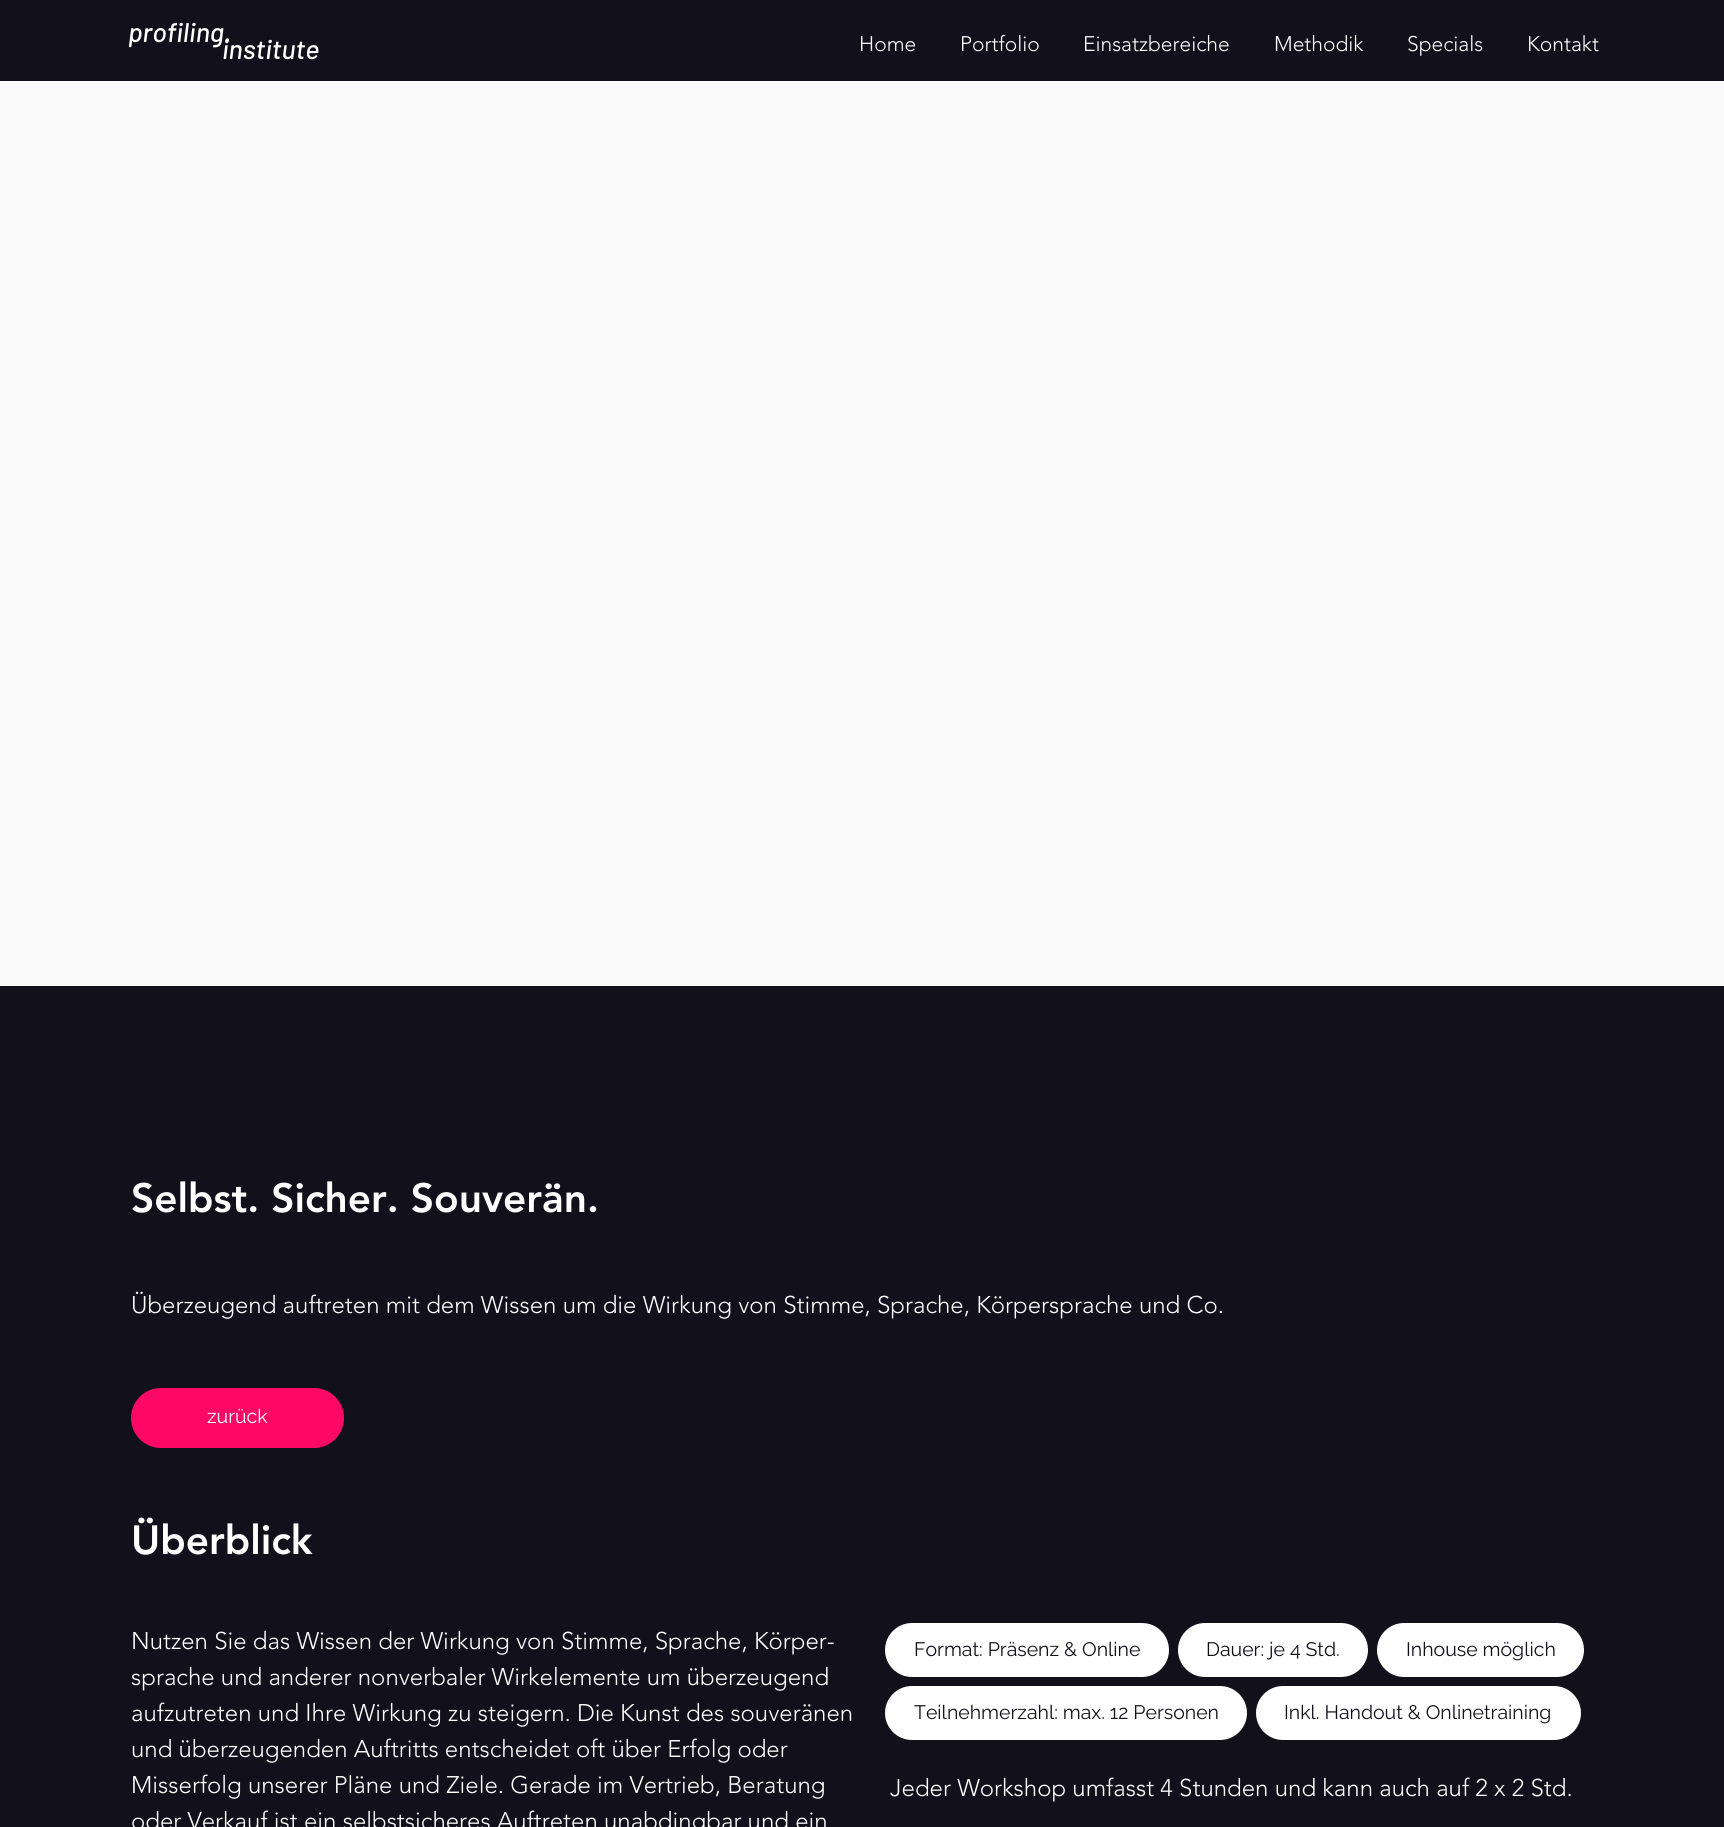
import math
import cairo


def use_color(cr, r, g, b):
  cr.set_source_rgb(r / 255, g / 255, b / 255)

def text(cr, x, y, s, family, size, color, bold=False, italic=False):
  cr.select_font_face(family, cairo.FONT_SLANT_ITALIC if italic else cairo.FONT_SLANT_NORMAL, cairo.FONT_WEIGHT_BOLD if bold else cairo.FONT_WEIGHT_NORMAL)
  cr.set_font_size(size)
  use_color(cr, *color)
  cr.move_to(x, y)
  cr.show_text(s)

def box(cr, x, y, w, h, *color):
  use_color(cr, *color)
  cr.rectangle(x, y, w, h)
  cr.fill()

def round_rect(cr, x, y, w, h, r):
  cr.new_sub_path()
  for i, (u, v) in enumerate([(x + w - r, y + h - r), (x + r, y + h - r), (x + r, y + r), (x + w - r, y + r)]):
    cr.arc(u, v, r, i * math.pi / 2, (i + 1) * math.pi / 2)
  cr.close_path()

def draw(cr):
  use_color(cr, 18, 16, 27)
  cr.paint()
  box(cr, 0, 81, 1724, 905, 250, 250, 250)
  use_color(cr, 254, 8, 101)
  round_rect(cr, 131, 1388, 213, 60, 30)
  cr.fill()
  use_color(cr, 255, 255, 255)
  round_rect(cr, 885, 1623, 284, 54, 27)
  cr.fill()
  round_rect(cr, 1178, 1623, 190, 54, 27)
  cr.fill()
  round_rect(cr, 1377, 1623, 207, 54, 27)
  cr.fill()
  round_rect(cr, 885, 1686, 362, 54, 27)
  cr.fill()
  round_rect(cr, 1256, 1686, 325, 54, 27)
  cr.fill()
  text(cr, 128, 42, "profiling.", "Barlow Medium", 27, (255, 255, 255), italic=True)
  text(cr, 222, 59, "institute", "Barlow Medium", 27, (255, 255, 255), italic=True)
  text(cr, 859, 51, "Home", "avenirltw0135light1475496 Light", 21, (255, 255, 255))
  text(cr, 960, 51, "Portfolio", "avenirltw0135light1475496 Light", 21, (255, 255, 255))
  text(cr, 1083, 51, "Einsatzbereiche", "avenirltw0135light1475496 Light", 21, (255, 255, 255))
  text(cr, 1274, 51, "Methodik", "avenirltw0135light1475496 Light", 21, (255, 255, 255))
  text(cr, 1407, 51, "Specials", "avenirltw0135light1475496 Light", 21, (255, 255, 255))
  text(cr, 1527, 51, "Kontakt", "avenirltw0135light1475496 Light", 21, (255, 255, 255))
  text(cr, 131, 1212, "Selbst. Sicher. Souverän.", "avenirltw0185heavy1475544 Black", 40.5, (255, 255, 255))
  text(cr, 131, 1313, "Überzeugend auftreten mit dem Wissen um die Wirkung von Stimme, Sprache, Körpersprache und Co.", "avenirltw0135light1475496 Light", 24, (255, 255, 255))
  text(cr, 207, 1423, "zurück", "Raleway", 19.5, (255, 255, 255))
  text(cr, 131, 1554, "Überblick", "avenirltw0185heavy1475544 Black", 40.5, (255, 255, 255))
  text(cr, 131, 1649, "Nutzen Sie das Wissen der Wirkung von Stimme, Sprache, Körper-", "avenirltw0135light1475496 Light", 24, (255, 255, 255))
  text(cr, 131, 1685, "sprache und anderer nonverbaler Wirkelemente um überzeugend", "avenirltw0135light1475496 Light", 24, (255, 255, 255))
  text(cr, 131, 1721, "aufzutreten und Ihre Wirkung zu steigern. Die Kunst des souveränen", "avenirltw0135light1475496 Light", 24, (255, 255, 255))
  text(cr, 131, 1757, "und überzeugenden Auftritts entscheidet oft über Erfolg oder", "avenirltw0135light1475496 Light", 24, (255, 255, 255))
  text(cr, 131, 1793, "Misserfolg unserer Pläne und Ziele. Gerade im Vertrieb, Beratung", "avenirltw0135light1475496 Light", 24, (255, 255, 255))
  text(cr, 131, 1829, "oder Verkauf ist ein selbstsicheres Auftreten unabdingbar und ein", "avenirltw0135light1475496 Light", 24, (255, 255, 255))
  text(cr, 914, 1656, "Format: Präsenz & Online", "Raleway", 19.5, (18, 16, 27))
  text(cr, 1206, 1656, "Dauer: je 4 Std.", "Raleway", 19.5, (18, 16, 27))
  text(cr, 1406, 1656, "Inhouse möglich", "Raleway", 19.5, (18, 16, 27))
  text(cr, 914, 1719, "Teilnehmerzahl: max. 12 Personen", "Raleway", 19.5, (18, 16, 27))
  text(cr, 1284, 1719, "Inkl. Handout & Onlinetraining", "Raleway", 19.5, (18, 16, 27))
  text(cr, 890, 1796, "Jeder Workshop umfasst 4 Stunden und kann auch auf 2 x 2 Std.", "avenirltw0135light1475496 Light", 24, (255, 255, 255))


surface = cairo.ImageSurface(cairo.FORMAT_RGB24, 1724, 1827)
cr = cairo.Context(surface)
options = cairo.FontOptions()
options.set_hint_metrics(cairo.HINT_METRICS_OFF)
options.set_hint_style(cairo.HINT_STYLE_NONE)
cr.set_font_options(options)
cr.set_miter_limit(4)
draw(cr)
surface.write_to_png("out.png")
